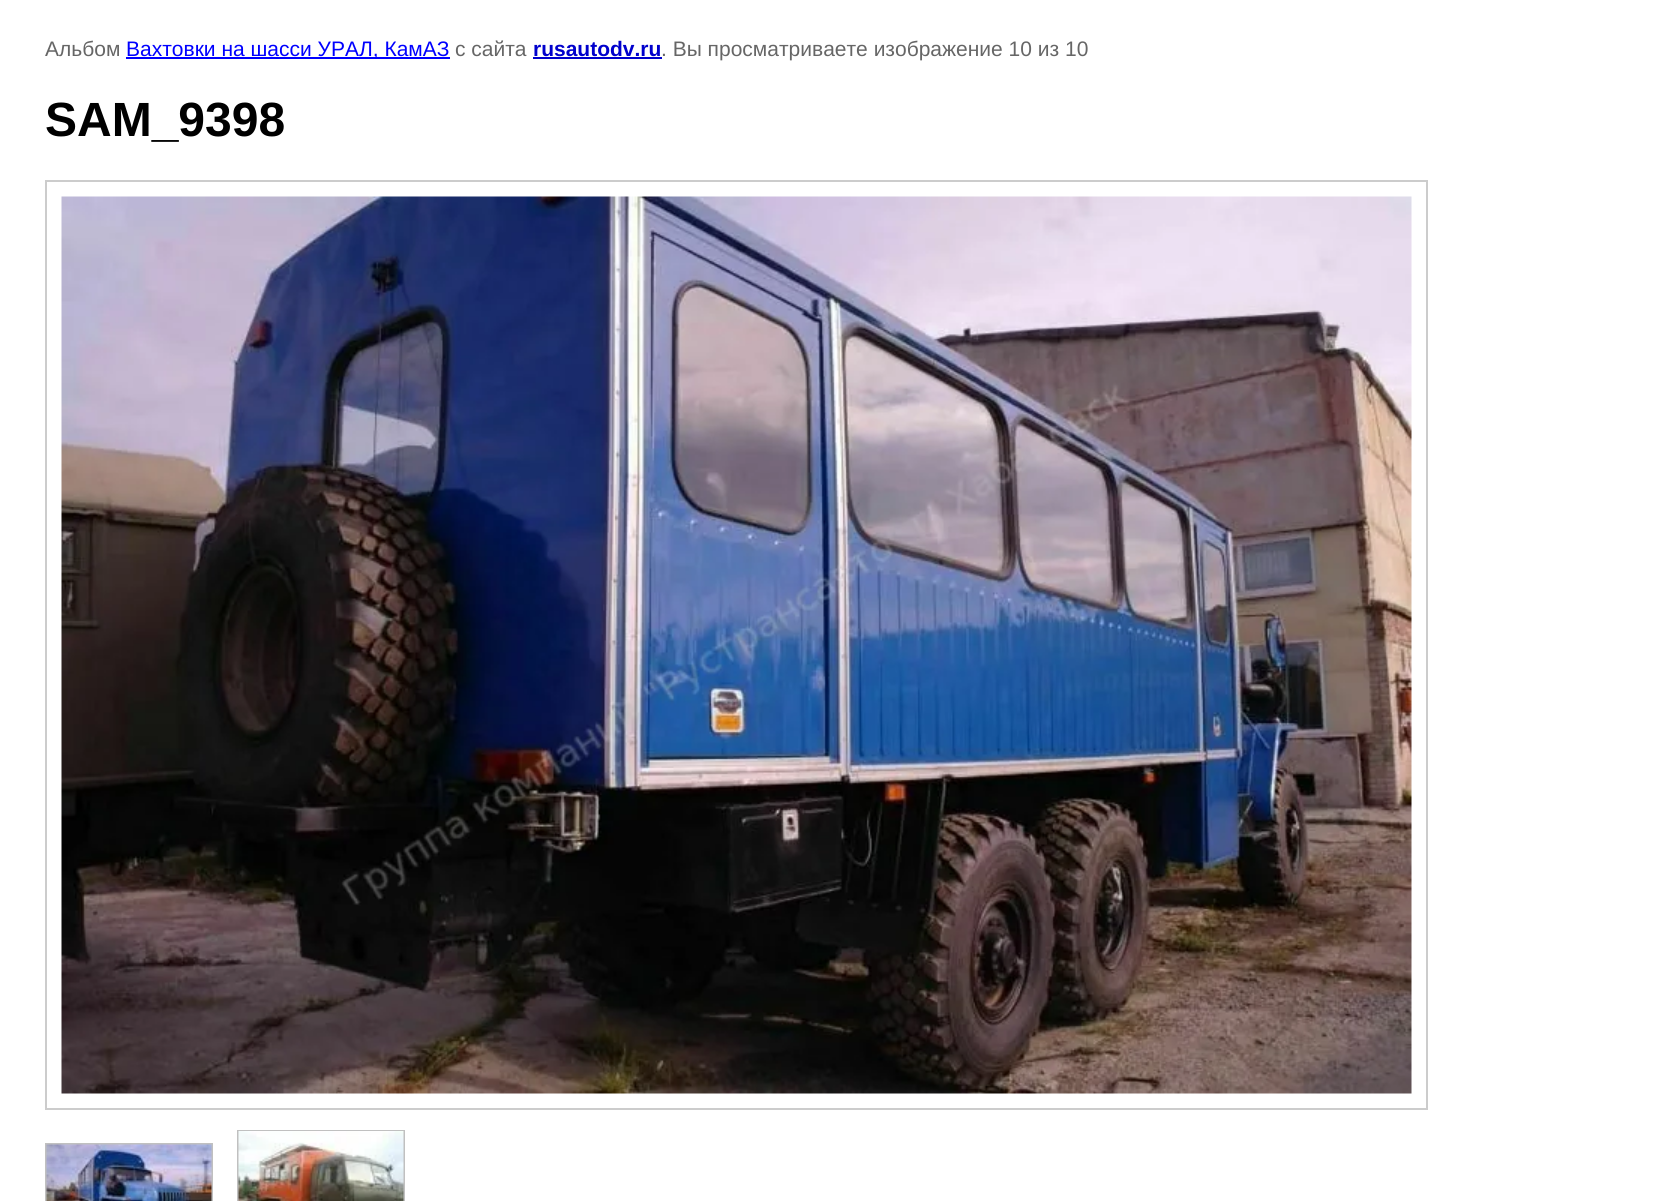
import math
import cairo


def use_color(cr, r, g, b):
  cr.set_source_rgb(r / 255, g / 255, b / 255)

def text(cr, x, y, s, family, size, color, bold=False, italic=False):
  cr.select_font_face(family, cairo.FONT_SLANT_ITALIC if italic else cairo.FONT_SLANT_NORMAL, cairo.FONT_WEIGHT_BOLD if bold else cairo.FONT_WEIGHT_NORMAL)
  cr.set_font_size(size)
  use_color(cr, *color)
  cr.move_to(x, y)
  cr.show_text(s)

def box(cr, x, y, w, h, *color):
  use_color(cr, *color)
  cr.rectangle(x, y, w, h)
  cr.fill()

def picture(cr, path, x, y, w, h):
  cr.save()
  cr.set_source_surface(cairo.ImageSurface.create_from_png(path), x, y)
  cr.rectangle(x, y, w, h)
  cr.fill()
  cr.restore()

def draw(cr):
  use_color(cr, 255, 255, 255)
  cr.paint()
  box(cr, 126, 57, 324, 2, 0, 0, 255)
  box(cr, 533, 57, 129, 2, 0, 0, 204)
  cr.rectangle(46, 181, 1381, 928)
  use_color(cr, 204, 204, 204)
  cr.stroke()
  picture(cr, "img_01.png", 61, 196, 1351, 898)
  cr.rectangle(46, 1144, 166, 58)
  use_color(cr, 192, 192, 192)
  cr.stroke()
  picture(cr, "img_02.png", 46, 1144, 166, 57)
  cr.rectangle(238, 1131, 166, 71)
  cr.stroke()
  picture(cr, "img_03.png", 238, 1131, 166, 70)
  text(cr, 45, 56, "Альбом", "Liberation Sans", 21, (102, 102, 102))
  text(cr, 126, 56, "Вахтовки на шасси УРАЛ, КамАЗ", "Liberation Sans", 21, (0, 0, 255))
  text(cr, 455, 56, "с сайта", "Liberation Sans", 21, (102, 102, 102))
  text(cr, 533, 56, "rusautodv.ru", "Liberation Sans", 21, (0, 0, 204), bold=True)
  text(cr, 661, 56, ". Вы просматриваете изображение 10 из 10", "Liberation Sans", 21, (102, 102, 102))
  text(cr, 45, 136, "SAM_9398", "Liberation Sans", 48, (0, 0, 0), bold=True)


surface = cairo.ImageSurface(cairo.FORMAT_RGB24, 1662, 1201)
cr = cairo.Context(surface)
options = cairo.FontOptions()
options.set_hint_metrics(cairo.HINT_METRICS_OFF)
options.set_hint_style(cairo.HINT_STYLE_NONE)
cr.set_font_options(options)
cr.set_miter_limit(4)
draw(cr)
surface.write_to_png("out.png")
